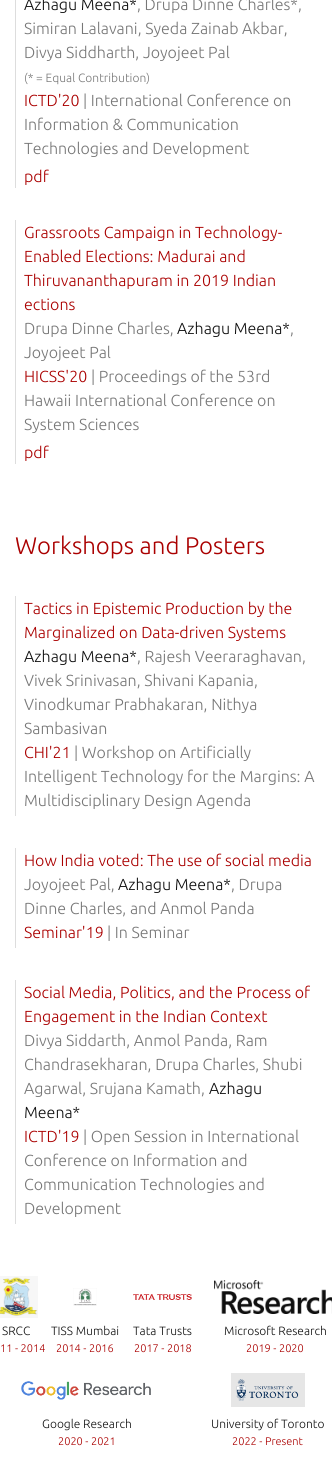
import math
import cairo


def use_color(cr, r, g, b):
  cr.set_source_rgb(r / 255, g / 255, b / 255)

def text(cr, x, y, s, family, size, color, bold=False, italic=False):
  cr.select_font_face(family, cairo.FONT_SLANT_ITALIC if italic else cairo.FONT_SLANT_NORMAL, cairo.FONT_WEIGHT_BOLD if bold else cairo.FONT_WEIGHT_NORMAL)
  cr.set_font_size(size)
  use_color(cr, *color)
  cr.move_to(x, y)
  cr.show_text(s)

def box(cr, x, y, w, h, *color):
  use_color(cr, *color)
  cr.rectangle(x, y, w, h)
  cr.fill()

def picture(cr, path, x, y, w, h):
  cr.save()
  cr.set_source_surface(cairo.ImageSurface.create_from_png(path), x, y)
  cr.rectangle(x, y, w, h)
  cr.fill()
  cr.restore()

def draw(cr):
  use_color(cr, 255, 255, 255)
  cr.paint()
  box(cr, 15, 0, 1, 188, 221, 221, 221)
  box(cr, 15, 220, 1, 244, 221, 221, 221)
  box(cr, 15, 596, 1, 220, 221, 221, 221)
  box(cr, 15, 848, 1, 100, 221, 221, 221)
  box(cr, 15, 980, 1, 244, 221, 221, 221)
  picture(cr, "img_01.png", 0, 1276, 38, 42)
  picture(cr, "img_02.png", 73, 1288, 24, 18)
  picture(cr, "img_03.png", 133, 1294, 59, 6)
  picture(cr, "img_04.png", 214, 1280, 118, 34)
  picture(cr, "img_05.png", 21, 1381, 130, 19)
  picture(cr, "img_06.png", 231, 1373, 74, 34)
  text(cr, 24, 10, "Azhagu Meena*", "Ubuntu Light", 16, (17, 17, 17))
  text(cr, 137, 10, ", Drupa Dinne Charles*,", "Ubuntu Light", 16, (119, 119, 119))
  text(cr, 24, 34, "Simiran Lalavani, Syeda Zainab Akbar,", "Ubuntu Light", 16, (119, 119, 119))
  text(cr, 24, 58, "Divya Siddharth, Joyojeet Pal", "Ubuntu Light", 16, (119, 119, 119))
  text(cr, 24, 82, "(* = Equal Contribution)", "Ubuntu Light", 12, (119, 119, 119))
  text(cr, 24, 106, "ICTD'20", "Ubuntu Light", 16, (170, 0, 0))
  text(cr, 83, 106, "| International Conference on", "Ubuntu Light", 16, (119, 119, 119))
  text(cr, 24, 130, "Information & Communication", "Ubuntu Light", 16, (119, 119, 119))
  text(cr, 24, 154, "Technologies and Development", "Ubuntu Light", 16, (119, 119, 119))
  text(cr, 24, 182, "pdf", "Ubuntu Light", 16, (170, 0, 0))
  text(cr, 24, 238, "Grassroots Campaign in Technology-", "Ubuntu Light", 16, (170, 0, 0))
  text(cr, 24, 262, "Enabled Elections: Madurai and", "Ubuntu Light", 16, (170, 0, 0))
  text(cr, 24, 286, "Thiruvananthapuram in 2019 Indian", "Ubuntu Light", 16, (170, 0, 0))
  text(cr, 24, 310, "ections", "Ubuntu Light", 16, (170, 0, 0))
  text(cr, 24, 334, "Drupa Dinne Charles,", "Ubuntu Light", 16, (119, 119, 119))
  text(cr, 177, 334, "Azhagu Meena*", "Ubuntu Light", 16, (17, 17, 17))
  text(cr, 290, 334, ",", "Ubuntu Light", 16, (119, 119, 119))
  text(cr, 24, 358, "Joyojeet Pal", "Ubuntu Light", 16, (119, 119, 119))
  text(cr, 24, 382, "HICSS'20", "Ubuntu Light", 16, (170, 0, 0))
  text(cr, 91, 382, "| Proceedings of the 53rd", "Ubuntu Light", 16, (119, 119, 119))
  text(cr, 24, 406, "Hawaii International Conference on", "Ubuntu Light", 16, (119, 119, 119))
  text(cr, 24, 430, "System Sciences", "Ubuntu Light", 16, (119, 119, 119))
  text(cr, 24, 458, "pdf", "Ubuntu Light", 16, (170, 0, 0))
  text(cr, 15, 554, "Workshops and Posters", "Ubuntu Light", 24, (170, 0, 0))
  text(cr, 24, 614, "Tactics in Epistemic Production by the", "Ubuntu Light", 16, (170, 0, 0))
  text(cr, 24, 638, "Marginalized on Data-driven Systems", "Ubuntu Light", 16, (170, 0, 0))
  text(cr, 24, 662, "Azhagu Meena*", "Ubuntu Light", 16, (17, 17, 17))
  text(cr, 137, 662, ", Rajesh Veeraraghavan,", "Ubuntu Light", 16, (119, 119, 119))
  text(cr, 24, 686, "Vivek Srinivasan, Shivani Kapania,", "Ubuntu Light", 16, (119, 119, 119))
  text(cr, 24, 710, "Vinodkumar Prabhakaran, Nithya", "Ubuntu Light", 16, (119, 119, 119))
  text(cr, 24, 734, "Sambasivan", "Ubuntu Light", 16, (119, 119, 119))
  text(cr, 24, 758, "CHI'21", "Ubuntu Light", 16, (170, 0, 0))
  text(cr, 74, 758, "| Workshop on Artificially", "Ubuntu Light", 16, (119, 119, 119))
  text(cr, 24, 782, "Intelligent Technology for the Margins: A", "Ubuntu Light", 16, (119, 119, 119))
  text(cr, 24, 806, "Multidisciplinary Design Agenda", "Ubuntu Light", 16, (119, 119, 119))
  text(cr, 24, 866, "How India voted: The use of social media", "Ubuntu Light", 16, (170, 0, 0))
  text(cr, 24, 890, "Joyojeet Pal,", "Ubuntu Light", 16, (119, 119, 119))
  text(cr, 118, 890, "Azhagu Meena*", "Ubuntu Light", 16, (17, 17, 17))
  text(cr, 231, 890, ", Drupa", "Ubuntu Light", 16, (119, 119, 119))
  text(cr, 24, 914, "Dinne Charles, and Anmol Panda", "Ubuntu Light", 16, (119, 119, 119))
  text(cr, 24, 938, "Seminar'19", "Ubuntu Light", 16, (170, 0, 0))
  text(cr, 107, 938, "| In Seminar", "Ubuntu Light", 16, (119, 119, 119))
  text(cr, 24, 998, "Social Media, Politics, and the Process of", "Ubuntu Light", 16, (170, 0, 0))
  text(cr, 24, 1022, "Engagement in the Indian Context", "Ubuntu Light", 16, (170, 0, 0))
  text(cr, 24, 1046, "Divya Siddarth, Anmol Panda, Ram", "Ubuntu Light", 16, (119, 119, 119))
  text(cr, 24, 1070, "Chandrasekharan, Drupa Charles, Shubi", "Ubuntu Light", 16, (119, 119, 119))
  text(cr, 24, 1094, "Agarwal, Srujana Kamath,", "Ubuntu Light", 16, (119, 119, 119))
  text(cr, 209, 1094, "Azhagu", "Ubuntu Light", 16, (17, 17, 17))
  text(cr, 24, 1118, "Meena*", "Ubuntu Light", 16, (17, 17, 17))
  text(cr, 24, 1142, "ICTD'19", "Ubuntu Light", 16, (170, 0, 0))
  text(cr, 83, 1142, "| Open Session in International", "Ubuntu Light", 16, (119, 119, 119))
  text(cr, 24, 1166, "Conference on Information and", "Ubuntu Light", 16, (119, 119, 119))
  text(cr, 24, 1190, "Communication Technologies and", "Ubuntu Light", 16, (119, 119, 119))
  text(cr, 24, 1214, "Development", "Ubuntu Light", 16, (119, 119, 119))
  text(cr, 2, 1335, "SRCC", "Ubuntu Light", 12, (17, 17, 17))
  text(cr, 0, 1352, "11 - 2014", "Ubuntu Light", 11, (170, 0, 0))
  text(cr, 51, 1335, "TISS Mumbai", "Ubuntu Light", 12, (17, 17, 17))
  text(cr, 56, 1352, "2014 - 2016", "Ubuntu Light", 11, (170, 0, 0))
  text(cr, 133, 1335, "Tata Trusts", "Ubuntu Light", 12, (17, 17, 17))
  text(cr, 134, 1352, "2017 - 2018", "Ubuntu Light", 11, (170, 0, 0))
  text(cr, 224, 1335, "Microsoft Research", "Ubuntu Light", 12, (17, 17, 17))
  text(cr, 246, 1352, "2019 - 2020", "Ubuntu Light", 11, (170, 0, 0))
  text(cr, 42, 1428, "Google Research", "Ubuntu Light", 12, (17, 17, 17))
  text(cr, 58, 1445, "2020 - 2021", "Ubuntu Light", 11, (170, 0, 0))
  text(cr, 211, 1428, "University of Toronto", "Ubuntu Light", 12, (17, 17, 17))
  text(cr, 232, 1445, "2022 - Present", "Ubuntu Light", 11, (170, 0, 0))


surface = cairo.ImageSurface(cairo.FORMAT_RGB24, 332, 1473)
cr = cairo.Context(surface)
options = cairo.FontOptions()
options.set_hint_metrics(cairo.HINT_METRICS_OFF)
options.set_hint_style(cairo.HINT_STYLE_NONE)
cr.set_font_options(options)
cr.set_miter_limit(4)
draw(cr)
surface.write_to_png("out.png")
